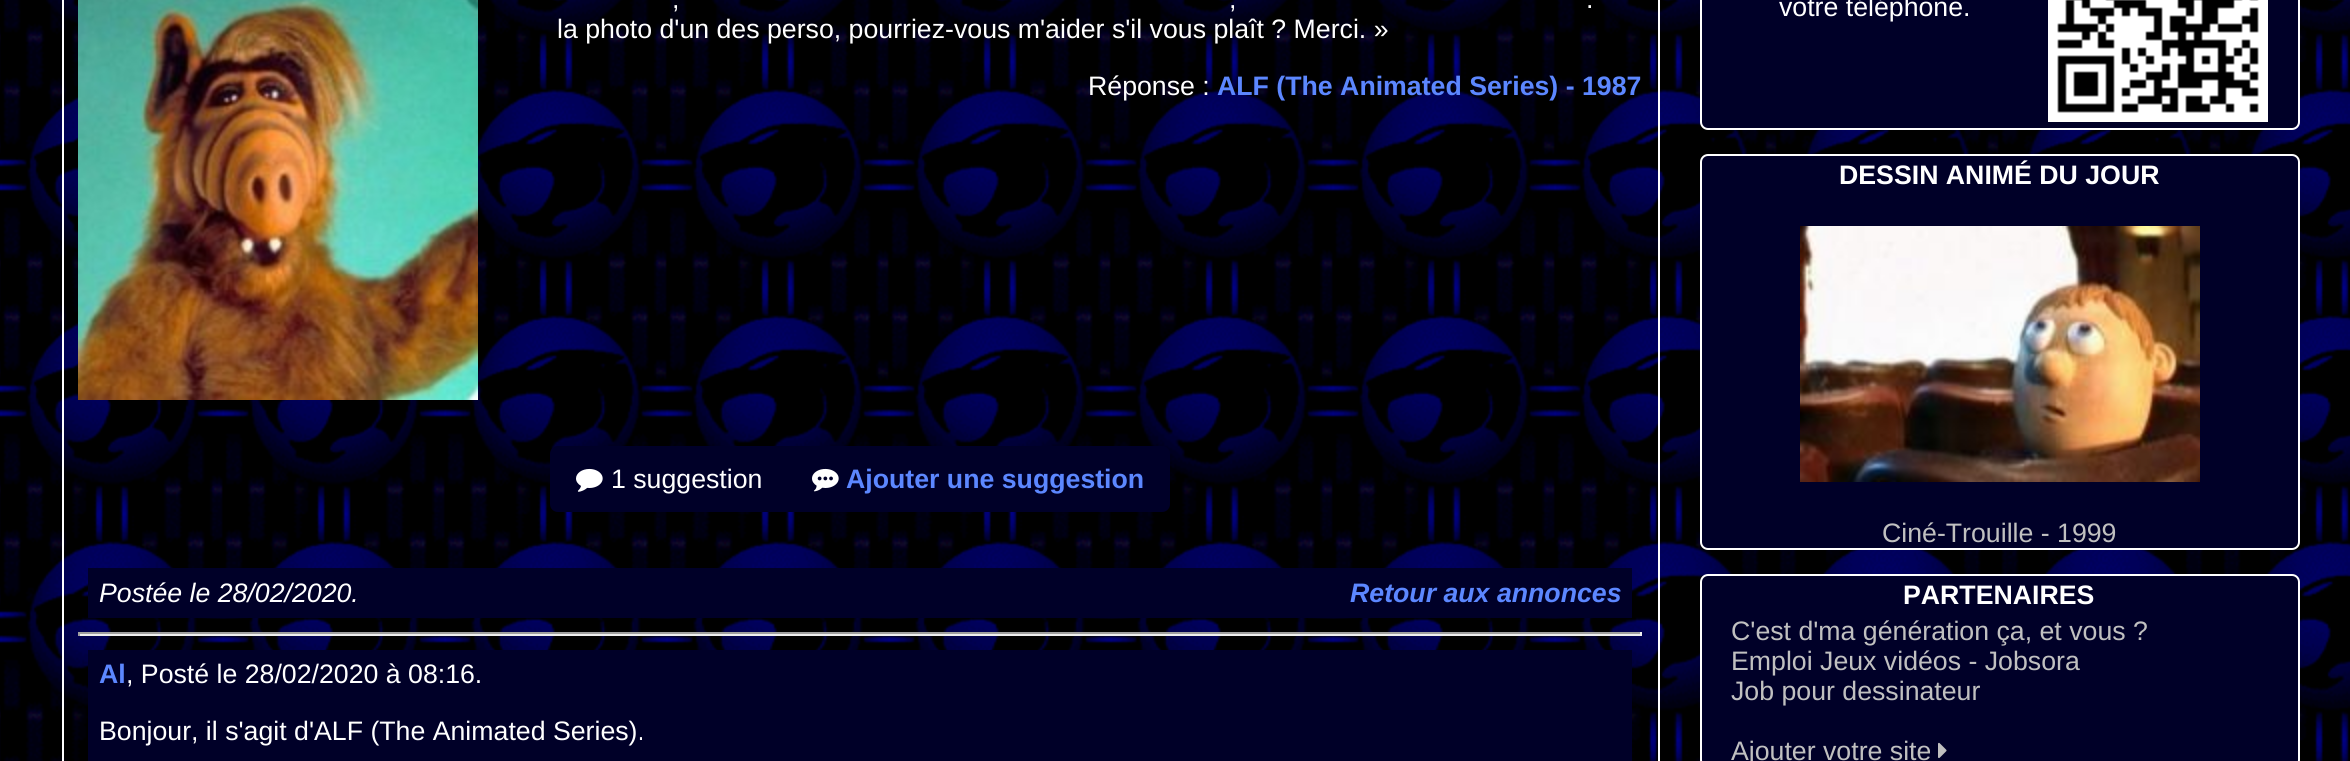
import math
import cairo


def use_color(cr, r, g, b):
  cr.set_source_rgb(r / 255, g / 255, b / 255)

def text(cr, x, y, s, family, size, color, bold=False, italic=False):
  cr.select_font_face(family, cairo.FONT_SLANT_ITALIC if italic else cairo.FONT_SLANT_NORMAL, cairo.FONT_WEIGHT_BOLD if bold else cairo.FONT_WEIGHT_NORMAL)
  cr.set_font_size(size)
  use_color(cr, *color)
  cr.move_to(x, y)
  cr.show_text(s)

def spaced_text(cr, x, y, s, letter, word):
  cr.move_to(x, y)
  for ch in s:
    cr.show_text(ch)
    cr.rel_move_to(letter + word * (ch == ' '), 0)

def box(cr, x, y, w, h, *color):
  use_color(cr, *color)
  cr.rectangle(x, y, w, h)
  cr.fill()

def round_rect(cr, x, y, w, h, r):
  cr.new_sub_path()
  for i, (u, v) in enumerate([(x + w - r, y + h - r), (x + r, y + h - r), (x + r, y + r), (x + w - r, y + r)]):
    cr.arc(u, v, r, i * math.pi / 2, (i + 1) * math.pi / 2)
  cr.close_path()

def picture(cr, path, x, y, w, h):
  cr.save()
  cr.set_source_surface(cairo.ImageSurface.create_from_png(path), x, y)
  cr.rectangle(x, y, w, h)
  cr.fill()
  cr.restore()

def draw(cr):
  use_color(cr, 255, 255, 255)
  cr.paint()
  picture(cr, "img_01.png", 0, 0, 2350, 761)
  cr.rectangle(63, -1, 1596, 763)
  use_color(cr, 255, 255, 255)
  cr.stroke()
  picture(cr, "img_02.png", 78, 0, 400, 400)
  use_color(cr, 0, 0, 40)
  cr.new_path()
  cr.move_to(558, 447)
  cr.line_to(787, 447)
  cr.line_to(787, 511)
  cr.line_to(558, 511)
  cr.curve_to(554, 511, 551, 508, 551, 504)
  cr.line_to(551, 454)
  cr.curve_to(551, 450, 554, 447, 558, 447)
  cr.close_path()
  cr.fill_preserve()
  cr.stroke()
  picture(cr, "img_03.png", 576, 468, 27, 24)
  cr.new_path()
  cr.move_to(787, 447)
  cr.line_to(1162, 447)
  cr.curve_to(1166, 447, 1169, 450, 1169, 454)
  cr.line_to(1169, 504)
  cr.curve_to(1169, 508, 1166, 511, 1162, 511)
  cr.line_to(787, 511)
  cr.close_path()
  cr.fill_preserve()
  cr.stroke()
  picture(cr, "img_04.png", 812, 468, 27, 24)
  box(cr, 88, 568, 1544, 50, 0, 0, 40)
  box(cr, 78, 632, 1564, 2, 159, 159, 159)
  box(cr, 1640, 632, 2, 4, 238, 238, 238)
  box(cr, 78, 634, 1564, 2, 238, 238, 238)
  box(cr, 78, 632, 2, 4, 159, 159, 159)
  box(cr, 88, 650, 1544, 111, 0, 0, 40)
  round_rect(cr, 1701, -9, 598, 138, 7)
  cr.fill_preserve()
  use_color(cr, 255, 255, 255)
  cr.stroke()
  picture(cr, "img_05.png", 2048, 0, 220, 122)
  use_color(cr, 0, 0, 40)
  round_rect(cr, 1701, 155, 598, 394, 7)
  cr.fill_preserve()
  use_color(cr, 255, 255, 255)
  cr.stroke()
  picture(cr, "img_06.png", 1800, 226, 400, 256)
  use_color(cr, 0, 0, 40)
  round_rect(cr, 1701, 575, 598, 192, 7)
  cr.fill_preserve()
  use_color(cr, 255, 255, 255)
  cr.stroke()
  picture(cr, "img_07.png", 1938, 742, 9, 16)
  cr.select_font_face("Liberation Sans")
  cr.set_font_size(26.7)
  spaced_text(cr, 672, 8, ",", 0, 1)
  spaced_text(cr, 1229, 8, ",", 0, 1)
  spaced_text(cr, 1586, 8, ".", 0, 1)
  text(cr, 557, 38, "la photo d'un des perso, pourriez-vous m'aider s'il vous plaît ? Merci. »", "Liberation Sans", 26.7, (255, 255, 255))
  text(cr, 1088, 95, "Réponse :", "Liberation Sans", 26.7, (255, 255, 255))
  text(cr, 1217, 95, "ALF (The Animated Series) - 1987", "Liberation Sans", 26.7, (92, 135, 255), bold=True)
  text(cr, 611, 488, "1 suggestion", "Liberation Sans", 26.7, (255, 255, 255))
  text(cr, 846, 488, "Ajouter une suggestion", "Liberation Sans", 26.7, (92, 135, 255), bold=True)
  text(cr, 99, 602, "Postée le 28/02/2020.", "Liberation Sans", 26.7, (255, 255, 255), italic=True)
  text(cr, 1350, 602, "Retour aux annonces", "Liberation Sans", 26.7, (92, 135, 255), bold=True, italic=True)
  text(cr, 99, 683, "Al", "Liberation Sans", 26.7, (92, 135, 255), bold=True)
  text(cr, 126, 683, ", Posté le 28/02/2020 à 08:16.", "Liberation Sans", 26.7, (255, 255, 255))
  text(cr, 99, 740, "Bonjour, il s'agit d'ALF (The Animated Series).", "Liberation Sans", 26.7, (255, 255, 255))
  text(cr, 1779, 16, "votre téléphone.", "Liberation Sans", 26.7, (255, 255, 255))
  text(cr, 1839, 184, "DESSIN ANIMÉ DU JOUR", "Liberation Sans", 26.7, (255, 255, 255), bold=True)
  text(cr, 1882, 542, "Ciné-Trouille - 1999", "Liberation Sans", 26.7, (192, 192, 192))
  text(cr, 1903, 604, "PARTENAIRES", "Liberation Sans", 26.7, (255, 255, 255), bold=True)
  text(cr, 1731, 640, "C'est d'ma génération ça, et vous ?", "Liberation Sans", 26.7, (192, 192, 192))
  text(cr, 1731, 670, "Emploi Jeux vidéos - Jobsora", "Liberation Sans", 26.7, (192, 192, 192))
  text(cr, 1731, 700, "Job pour dessinateur", "Liberation Sans", 26.7, (192, 192, 192))
  text(cr, 1731, 760, "Ajouter votre site", "Liberation Sans", 26.7, (192, 192, 192))


surface = cairo.ImageSurface(cairo.FORMAT_RGB24, 2350, 761)
cr = cairo.Context(surface)
options = cairo.FontOptions()
options.set_hint_metrics(cairo.HINT_METRICS_OFF)
options.set_hint_style(cairo.HINT_STYLE_NONE)
cr.set_font_options(options)
cr.set_miter_limit(4)
draw(cr)
surface.write_to_png("out.png")
